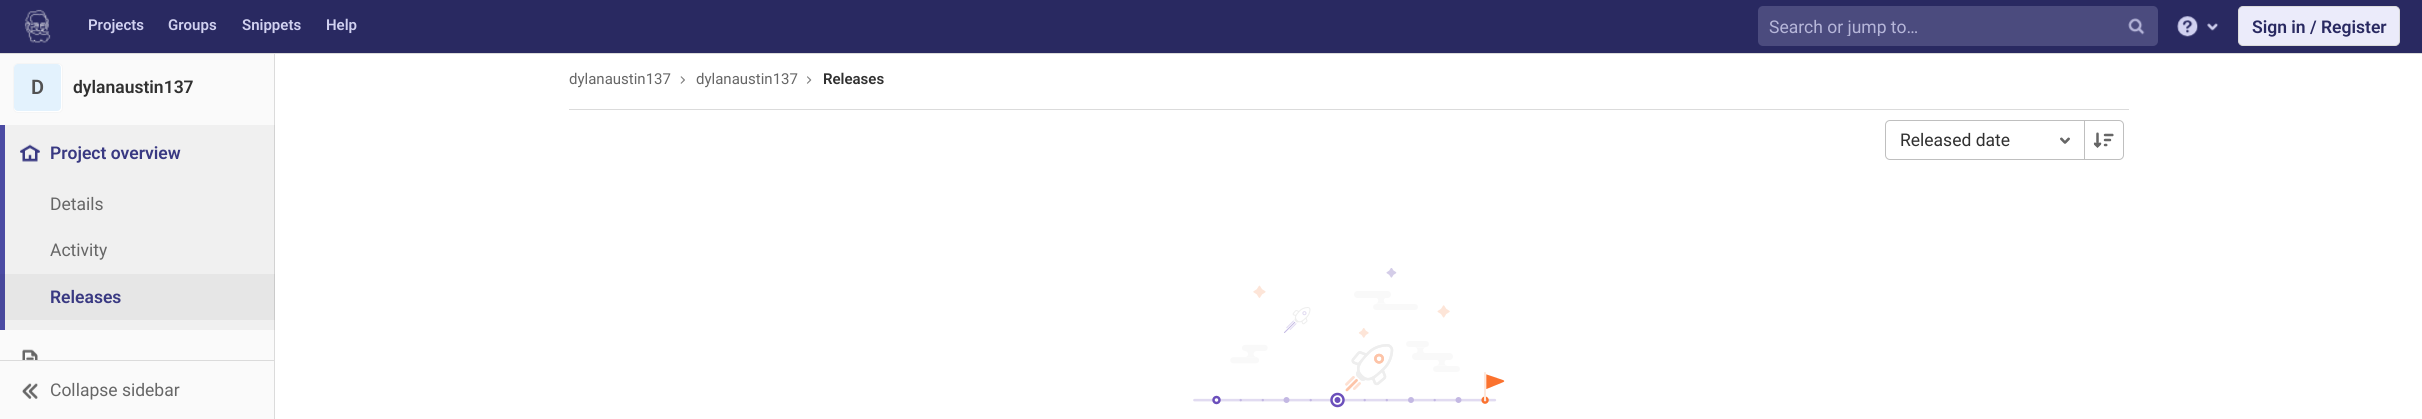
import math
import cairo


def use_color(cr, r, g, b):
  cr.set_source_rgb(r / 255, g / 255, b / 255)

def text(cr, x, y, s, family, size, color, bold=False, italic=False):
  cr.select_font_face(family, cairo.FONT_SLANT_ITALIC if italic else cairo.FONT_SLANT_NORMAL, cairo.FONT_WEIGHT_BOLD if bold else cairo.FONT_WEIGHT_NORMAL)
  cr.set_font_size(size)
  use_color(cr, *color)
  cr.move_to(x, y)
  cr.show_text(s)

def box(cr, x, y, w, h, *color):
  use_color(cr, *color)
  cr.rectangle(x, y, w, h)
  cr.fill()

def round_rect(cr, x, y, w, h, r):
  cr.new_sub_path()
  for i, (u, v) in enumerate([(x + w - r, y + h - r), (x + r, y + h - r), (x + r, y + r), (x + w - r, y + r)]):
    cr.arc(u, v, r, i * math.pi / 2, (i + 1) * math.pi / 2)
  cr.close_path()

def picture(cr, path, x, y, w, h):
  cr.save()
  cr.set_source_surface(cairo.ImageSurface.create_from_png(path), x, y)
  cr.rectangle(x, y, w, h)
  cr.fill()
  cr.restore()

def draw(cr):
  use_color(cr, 255, 255, 255)
  cr.paint()
  box(cr, 274, 50, 1, 369, 219, 219, 219)
  box(cr, 0, 0, 2422, 53, 41, 41, 97)
  box(cr, 0, 53, 2422, 1, 219, 219, 219)
  picture(cr, "img_01.png", 24, 9, 27, 34)
  use_color(cr, 75, 75, 126)
  round_rect(cr, 1758, 6, 400, 40, 5)
  cr.fill()
  picture(cr, "img_02.png", 2128, 18, 17, 17)
  picture(cr, "img_03.png", 2177, 16, 21, 21)
  picture(cr, "img_04.png", 2207, 23, 12, 8)
  use_color(cr, 235, 235, 250)
  round_rect(cr, 2238.5, 6.5, 161, 39, 4.5)
  cr.fill_preserve()
  use_color(cr, 219, 219, 219)
  cr.set_line_width(1)
  cr.stroke()
  box(cr, 0, 54, 274, 306, 250, 250, 250)
  box(cr, 5, 125, 269, 205, 240, 240, 240)
  box(cr, 5, 274, 269, 46, 230, 230, 230)
  box(cr, 274, 125, 1, 205, 210, 210, 210)
  box(cr, 274, 274, 1, 46, 202, 202, 202)
  use_color(cr, 255, 255, 255)
  round_rect(cr, 13.5, 63.5, 49, 49, 4.5)
  cr.fill_preserve()
  use_color(cr, 245, 245, 245)
  cr.stroke()
  use_color(cr, 227, 242, 253)
  round_rect(cr, 14, 64, 47, 47, 4)
  cr.fill()
  box(cr, 0, 125, 5, 205, 75, 75, 163)
  box(cr, 0, 274, 5, 46, 72, 72, 156)
  picture(cr, "img_05.png", 20, 144, 20, 18)
  picture(cr, "img_06.png", 22, 349, 16, 11)
  box(cr, 0, 361, 274, 58, 250, 250, 250)
  box(cr, 0, 360, 274, 1, 219, 219, 219)
  picture(cr, "img_07.png", 22, 383, 16, 16)
  box(cr, 569, 109, 1560, 1, 219, 219, 219)
  picture(cr, "img_08.png", 680, 76, 5, 8)
  picture(cr, "img_09.png", 806, 76, 6, 8)
  cr.new_path()
  cr.move_to(1890, 120.5)
  cr.line_to(2084.5, 120.5)
  cr.line_to(2084.5, 159.5)
  cr.line_to(1890, 159.5)
  cr.curve_to(1887.5, 159.5, 1885.5, 157.5, 1885.5, 155)
  cr.line_to(1885.5, 125)
  cr.curve_to(1885.5, 122.5, 1887.5, 120.5, 1890, 120.5)
  cr.close_path()
  use_color(cr, 191, 191, 191)
  cr.stroke()
  picture(cr, "img_10.png", 2060, 137, 10, 7)
  use_color(cr, 255, 255, 255)
  cr.new_path()
  cr.move_to(2084.5, 120.5)
  cr.line_to(2119, 120.5)
  cr.curve_to(2121.5, 120.5, 2123.5, 122.5, 2123.5, 125)
  cr.line_to(2123.5, 155)
  cr.curve_to(2123.5, 157.5, 2121.5, 159.5, 2119, 159.5)
  cr.line_to(2084.5, 159.5)
  cr.close_path()
  cr.fill_preserve()
  use_color(cr, 191, 191, 191)
  cr.stroke()
  picture(cr, "img_11.png", 2093, 132, 21, 16)
  picture(cr, "img_12.png", 1193, 268, 312, 140)
  text(cr, 88, 30, "Projects", "Roboto SemiBold", 15, (209, 209, 240))
  text(cr, 168, 30, "Groups", "Roboto SemiBold", 15, (209, 209, 240))
  text(cr, 242, 30, "Snippets", "Roboto SemiBold", 15, (209, 209, 240))
  text(cr, 326, 30, "Help", "Roboto SemiBold", 15, (209, 209, 240))
  cr.save()
  cr.rectangle(1769, 16, 352, 20)
  cr.clip()
  text(cr, 1769, 33, "Search or jump to…", "Roboto", 17.5, (182, 182, 217))
  cr.restore()
  text(cr, 2252, 33, "Sign in / Register", "Roboto SemiBold", 17.5, (41, 41, 97))
  text(cr, 31, 94, "D", "Roboto SemiBold", 20, (82, 82, 82))
  text(cr, 73, 93, "dylanaustin137", "Roboto SemiBold", 17.5, (48, 48, 48))
  text(cr, 50, 159, "Project overview", "Roboto SemiBold", 17.5, (57, 57, 130))
  text(cr, 50, 210, "Details", "Roboto", 17.5, (102, 102, 102))
  text(cr, 50, 256, "Activity", "Roboto", 17.5, (102, 102, 102))
  text(cr, 50, 303, "Releases", "Roboto SemiBold", 17.5, (57, 57, 130))
  text(cr, 50, 396, "Collapse sidebar", "Roboto", 17.5, (102, 102, 102))
  text(cr, 569, 84, "dylanaustin137", "Roboto", 15, (102, 102, 102))
  text(cr, 696, 84, "dylanaustin137", "Roboto", 15, (102, 102, 102))
  text(cr, 823, 84, "Releases", "Roboto SemiBold", 15, (48, 48, 48))
  text(cr, 1900, 146, "Released date", "Roboto", 17.5, (48, 48, 48))


surface = cairo.ImageSurface(cairo.FORMAT_RGB24, 2422, 419)
cr = cairo.Context(surface)
options = cairo.FontOptions()
options.set_hint_metrics(cairo.HINT_METRICS_OFF)
options.set_hint_style(cairo.HINT_STYLE_NONE)
cr.set_font_options(options)
cr.set_miter_limit(4)
draw(cr)
surface.write_to_png("out.png")
